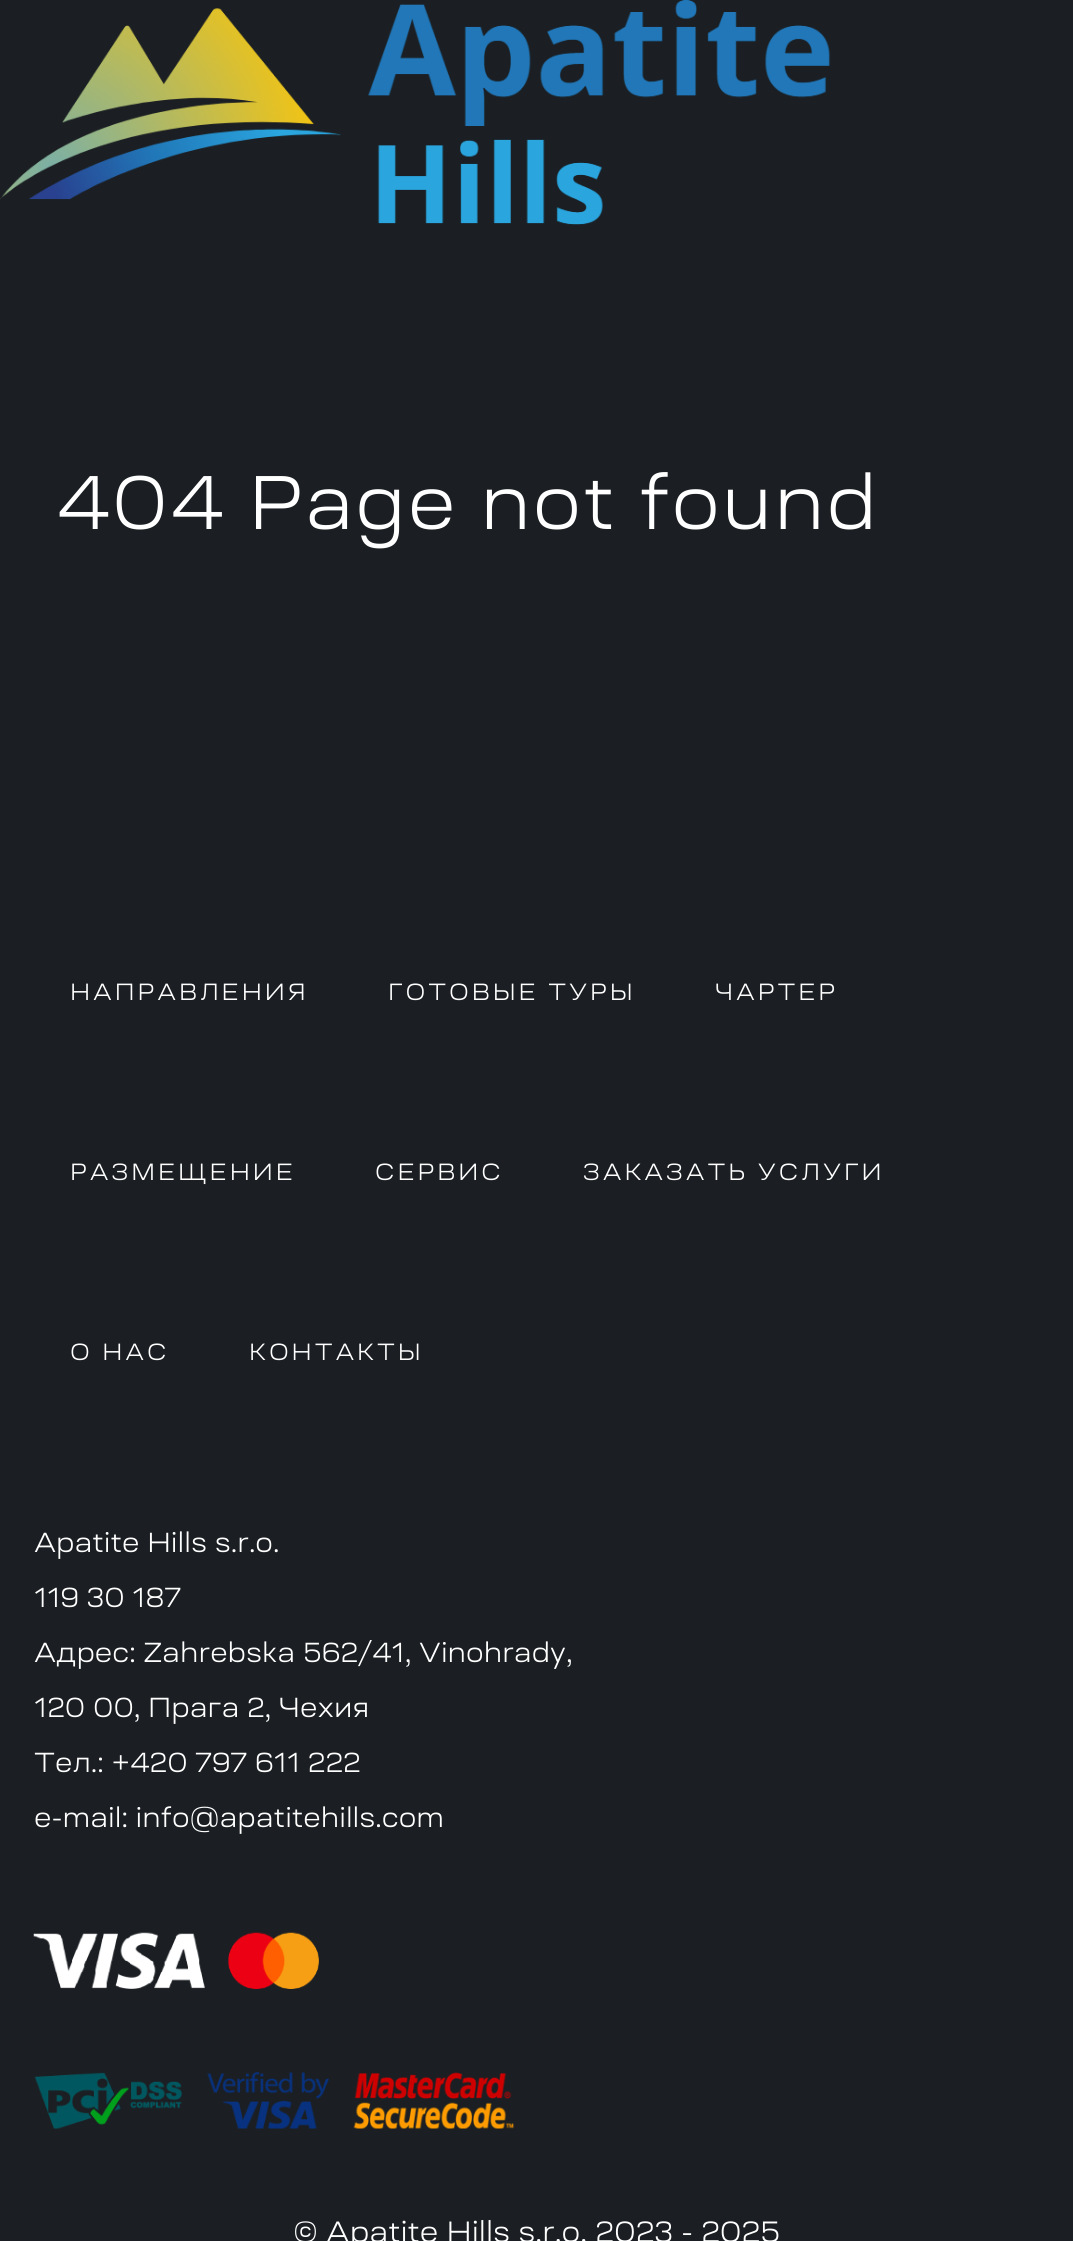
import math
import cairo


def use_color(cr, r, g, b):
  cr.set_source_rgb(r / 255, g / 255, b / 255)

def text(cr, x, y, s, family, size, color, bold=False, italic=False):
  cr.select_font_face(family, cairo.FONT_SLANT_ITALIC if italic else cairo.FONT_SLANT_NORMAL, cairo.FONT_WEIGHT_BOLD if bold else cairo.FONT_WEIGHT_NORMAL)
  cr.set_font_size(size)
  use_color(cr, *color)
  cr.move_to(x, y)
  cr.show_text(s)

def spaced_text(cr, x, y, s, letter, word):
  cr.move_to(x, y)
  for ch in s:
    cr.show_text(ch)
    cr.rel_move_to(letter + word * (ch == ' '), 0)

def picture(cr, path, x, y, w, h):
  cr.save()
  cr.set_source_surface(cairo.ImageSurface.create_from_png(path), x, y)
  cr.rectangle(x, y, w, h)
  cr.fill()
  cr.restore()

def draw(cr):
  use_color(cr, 27, 31, 35)
  cr.paint()
  picture(cr, "img_01.png", 0, 0, 831, 225)
  picture(cr, "img_02.png", 33, 1932, 286, 57)
  picture(cr, "img_03.png", 34, 2072, 481, 57)
  cr.select_font_face("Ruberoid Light")
  cr.set_font_size(75.6)
  use_color(cr, 255, 255, 255)
  spaced_text(cr, 56, 529, "404 Page not found", 1.75, 0)
  cr.set_font_size(23.4)
  spaced_text(cr, 70, 1000, "НАПРАВЛЕНИЯ", 2.9, 0)
  spaced_text(cr, 388, 1000, "ГОТОВЫЕ ТУРЫ", 2.9, 0)
  spaced_text(cr, 715, 1000, "ЧАРТЕР", 2.9, 0)
  spaced_text(cr, 70, 1180, "РАЗМЕЩЕНИЕ", 2.9, 0)
  spaced_text(cr, 375, 1180, "СЕРВИС", 2.9, 0)
  spaced_text(cr, 583, 1180, "ЗАКАЗАТЬ УСЛУГИ", 2.9, 0)
  spaced_text(cr, 70, 1360, "О НАС", 2.9, 0)
  spaced_text(cr, 249, 1360, "КОНТАКТЫ", 2.9, 0)
  text(cr, 34, 1552, "Apatite Hills s.r.o.", "Ruberoid Light", 27.5, (255, 255, 255))
  text(cr, 34, 1607, "119 30 187", "Ruberoid Light", 27.5, (255, 255, 255))
  text(cr, 34, 1662, "Адрес: Zahrebska 562/41, Vinohrady,", "Ruberoid Light", 27.5, (255, 255, 255))
  text(cr, 34, 1717, "120 00, Прага 2, Чехия", "Ruberoid Light", 27.5, (255, 255, 255))
  text(cr, 34, 1772, "Тел.: +420 797 611 222", "Ruberoid Light", 27.5, (255, 255, 255))
  text(cr, 34, 1827, "e-mail: info@apatitehills.com", "Ruberoid Light", 27.5, (255, 255, 255))
  text(cr, 293, 2242, "© Apatite Hills s.r.o. 2023 - 2025", "Ruberoid Light", 29.25, (255, 255, 255))


surface = cairo.ImageSurface(cairo.FORMAT_RGB24, 1073, 2241)
cr = cairo.Context(surface)
options = cairo.FontOptions()
options.set_hint_metrics(cairo.HINT_METRICS_OFF)
options.set_hint_style(cairo.HINT_STYLE_NONE)
cr.set_font_options(options)
cr.set_miter_limit(4)
draw(cr)
surface.write_to_png("out.png")
